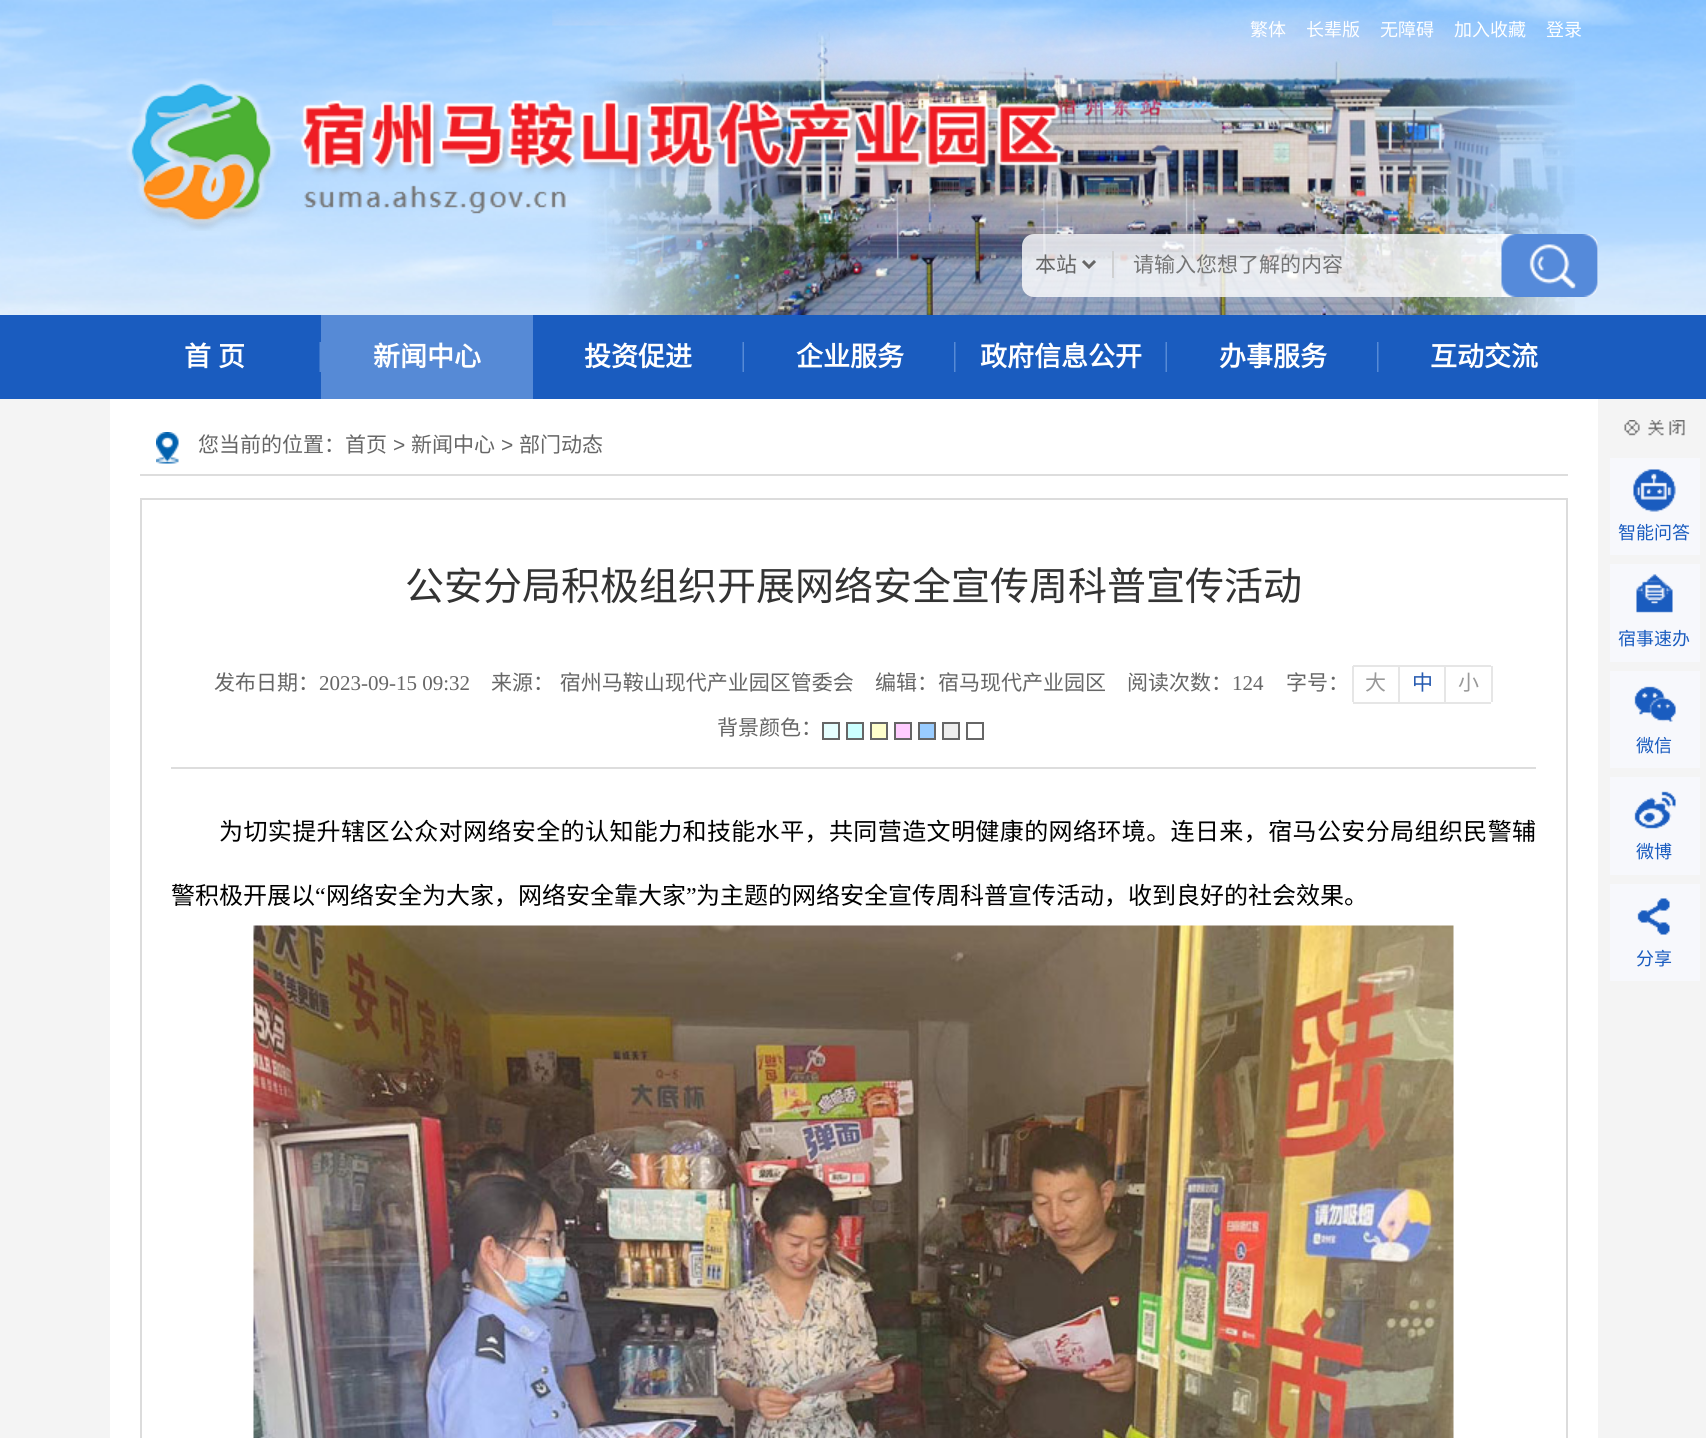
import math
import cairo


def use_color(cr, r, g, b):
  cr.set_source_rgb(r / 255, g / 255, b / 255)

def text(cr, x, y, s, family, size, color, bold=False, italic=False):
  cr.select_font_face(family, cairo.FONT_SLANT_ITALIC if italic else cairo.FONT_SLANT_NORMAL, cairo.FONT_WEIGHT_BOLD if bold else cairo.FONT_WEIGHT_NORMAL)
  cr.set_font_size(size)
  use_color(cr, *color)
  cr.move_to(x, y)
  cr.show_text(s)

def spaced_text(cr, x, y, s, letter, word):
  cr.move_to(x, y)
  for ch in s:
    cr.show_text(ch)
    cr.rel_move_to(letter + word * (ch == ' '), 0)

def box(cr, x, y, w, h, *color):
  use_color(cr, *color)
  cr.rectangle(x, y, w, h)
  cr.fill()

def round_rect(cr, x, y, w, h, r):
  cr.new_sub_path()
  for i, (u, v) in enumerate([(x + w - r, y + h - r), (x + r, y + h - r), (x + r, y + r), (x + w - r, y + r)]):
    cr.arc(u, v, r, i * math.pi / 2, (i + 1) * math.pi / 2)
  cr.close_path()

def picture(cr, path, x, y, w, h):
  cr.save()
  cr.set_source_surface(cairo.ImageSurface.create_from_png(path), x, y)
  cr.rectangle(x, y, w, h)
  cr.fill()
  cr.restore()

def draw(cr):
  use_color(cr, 244, 244, 244)
  cr.paint()
  picture(cr, "img_01.png", 0, 0, 1706, 315)
  picture(cr, "img_02.png", 552, 8, 1023, 307)
  picture(cr, "img_03.png", 126, 78, 940, 153)
  cr.set_source_rgba(1, 1, 1, 0.8)
  round_rect(cr, 1022, 234, 576, 63, 12)
  cr.fill()
  box(cr, 1112, 251, 2, 27, 207, 208, 209)
  cr.new_path()
  cr.move_to(1083, 261)
  cr.line_to(1089, 267)
  cr.line_to(1095, 261)
  use_color(cr, 102, 102, 102)
  cr.set_line_width(3)
  cr.stroke()
  picture(cr, "img_04.png", 1501, 234, 97, 63)
  box(cr, 0, 315, 1706, 84, 26, 92, 191)
  picture(cr, "img_05.png", 319, 342, 2, 30)
  box(cr, 321, 315, 212, 84, 86, 138, 214)
  picture(cr, "img_05.png", 742, 342, 2, 30)
  picture(cr, "img_06.png", 954, 342, 2, 30)
  picture(cr, "img_05.png", 1165, 342, 2, 30)
  picture(cr, "img_06.png", 1377, 342, 2, 30)
  box(cr, 110, 399, 1488, 1039, 255, 255, 255)
  picture(cr, "img_07.png", 156, 432, 23, 32)
  box(cr, 140, 474, 1428, 2, 221, 221, 221)
  cr.rectangle(141, 499, 1426, 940)
  use_color(cr, 220, 220, 220)
  cr.set_line_width(2)
  cr.stroke()
  box(cr, 171, 767, 1365, 2, 221, 221, 221)
  box(cr, 1353, 665, 45, 2, 230, 230, 230)
  box(cr, 1353, 702, 45, 2, 230, 230, 230)
  box(cr, 1352, 666, 2, 36, 230, 230, 230)
  cr.rectangle(1399, 666, 46, 37)
  cr.stroke()
  box(cr, 1446, 665, 45, 2, 230, 230, 230)
  box(cr, 1491, 666, 2, 36, 230, 230, 230)
  box(cr, 1446, 702, 45, 2, 230, 230, 230)
  use_color(cr, 230, 255, 255)
  cr.rectangle(823, 723, 16, 16)
  cr.fill_preserve()
  use_color(cr, 102, 102, 102)
  cr.stroke()
  use_color(cr, 204, 255, 255)
  cr.rectangle(847, 723, 16, 16)
  cr.fill_preserve()
  use_color(cr, 102, 102, 102)
  cr.stroke()
  use_color(cr, 255, 255, 204)
  cr.rectangle(871, 723, 16, 16)
  cr.fill_preserve()
  use_color(cr, 102, 102, 102)
  cr.stroke()
  use_color(cr, 255, 204, 255)
  cr.rectangle(895, 723, 16, 16)
  cr.fill_preserve()
  use_color(cr, 102, 102, 102)
  cr.stroke()
  use_color(cr, 153, 204, 255)
  cr.rectangle(919, 723, 16, 16)
  cr.fill_preserve()
  use_color(cr, 102, 102, 102)
  cr.stroke()
  use_color(cr, 238, 238, 238)
  cr.rectangle(943, 723, 16, 16)
  cr.fill_preserve()
  use_color(cr, 102, 102, 102)
  cr.stroke()
  cr.rectangle(967, 723, 16, 16)
  cr.stroke()
  picture(cr, "img_08.png", 253, 925, 1201, 513)
  picture(cr, "img_09.png", 1624, 420, 61, 16)
  box(cr, 1610, 458, 90, 97, 247, 248, 252)
  picture(cr, "img_10.png", 1633, 469, 43, 43)
  box(cr, 1610, 564, 90, 98, 247, 248, 252)
  picture(cr, "img_11.png", 1636, 574, 37, 39)
  box(cr, 1610, 671, 90, 97, 247, 248, 252)
  picture(cr, "img_12.png", 1634, 686, 42, 36)
  box(cr, 1610, 777, 90, 98, 247, 248, 252)
  picture(cr, "img_13.png", 1634, 791, 42, 38)
  box(cr, 1610, 884, 90, 97, 247, 248, 252)
  picture(cr, "img_14.png", 1637, 898, 33, 37)
  text(cr, 1250, 36, "繁体", "Noto Sans CJK SC", 18, (255, 255, 255))
  text(cr, 1306, 36, "长辈版", "Noto Sans CJK SC", 18, (255, 255, 255))
  text(cr, 1380, 36, "无障碍", "Noto Sans CJK SC", 18, (255, 255, 255))
  text(cr, 1454, 36, "加入收藏", "Noto Sans CJK SC", 18, (255, 255, 255))
  text(cr, 1546, 36, "登录", "Noto Sans CJK SC", 18, (255, 255, 255))
  text(cr, 1035, 272, "本站", "Noto Sans CJK SC", 21, (102, 102, 102))
  text(cr, 1133, 272, "请输入您想了解的内容", "Noto Sans CJK SC", 21, (117, 117, 117))
  cr.select_font_face("Noto Sans CJK SC", cairo.FONT_SLANT_NORMAL, cairo.FONT_WEIGHT_BOLD)
  cr.set_font_size(27)
  use_color(cr, 255, 255, 255)
  spaced_text(cr, 184, 366, "首 页", 0, 1)
  text(cr, 373, 366, "新闻中心", "Noto Sans CJK SC", 27, (255, 255, 255), bold=True)
  text(cr, 584, 366, "投资促进", "Noto Sans CJK SC", 27, (255, 255, 255), bold=True)
  text(cr, 796, 366, "企业服务", "Noto Sans CJK SC", 27, (255, 255, 255), bold=True)
  text(cr, 980, 366, "政府信息公开", "Noto Sans CJK SC", 27, (255, 255, 255), bold=True)
  text(cr, 1219, 366, "办事服务", "Noto Sans CJK SC", 27, (255, 255, 255), bold=True)
  text(cr, 1430, 366, "互动交流", "Noto Sans CJK SC", 27, (255, 255, 255), bold=True)
  text(cr, 198, 452, "您当前的位置：首页", "Noto Sans CJK SC", 21, (102, 102, 102))
  text(cr, 393, 452, ">", "Liberation Sans", 21, (102, 102, 102))
  text(cr, 411, 452, "新闻中心", "Noto Sans CJK SC", 21, (102, 102, 102))
  text(cr, 501, 452, ">", "Liberation Sans", 21, (102, 102, 102))
  text(cr, 519, 452, "部门动态", "Noto Sans CJK SC", 21, (102, 102, 102))
  text(cr, 405, 600, "公安分局积极组织开展网络安全宣传周科普宣传活动", "Noto Sans CJK SC", 39, (51, 51, 51))
  text(cr, 214, 690, "发布日期：", "Noto Sans CJK SC", 21, (102, 102, 102))
  text(cr, 319, 690, "2023-09-15 09:32", "Liberation Serif", 21, (102, 102, 102))
  cr.select_font_face("Noto Sans CJK SC")
  spaced_text(cr, 491, 690, "来源： 宿州马鞍山现代产业园区管委会", 0, 1)
  text(cr, 875, 690, "编辑：宿马现代产业园区", "Noto Sans CJK SC", 21, (102, 102, 102))
  text(cr, 1127, 690, "阅读次数：", "Noto Sans CJK SC", 21, (102, 102, 102))
  text(cr, 1232, 690, "124", "Liberation Serif", 21, (102, 102, 102))
  text(cr, 1286, 690, "字号：", "Noto Sans CJK SC", 21, (102, 102, 102))
  text(cr, 1365, 690, "大", "Noto Sans CJK SC", 21, (153, 153, 153))
  text(cr, 1412, 690, "中", "Noto Sans CJK SC", 21, (39, 91, 176))
  text(cr, 1458, 690, "小", "Noto Sans CJK SC", 21, (153, 153, 153))
  text(cr, 717, 735, "背景颜色：", "Noto Sans CJK SC", 21, (102, 102, 102))
  cr.set_font_size(24)
  use_color(cr, 0, 0, 0)
  spaced_text(cr, 219, 840, "为切实提升辖区公众对网络安全的认知能力和技能水平，共同营造文明健康的网络环境。连日来，宿马公安分局组织民警辅", 0.4, 0)
  text(cr, 171, 904, "警积极开展以", "Noto Sans CJK SC", 24, (0, 0, 0))
  text(cr, 315, 904, "“", "Liberation Serif", 24, (0, 0, 0))
  text(cr, 326, 904, "网络安全为大家，网络安全靠大家", "Noto Sans CJK SC", 24, (0, 0, 0))
  text(cr, 686, 904, "”", "Liberation Serif", 24, (0, 0, 0))
  text(cr, 696, 904, "为主题的网络安全宣传周科普宣传活动，收到良好的社会效果。", "Noto Sans CJK SC", 24, (0, 0, 0))
  text(cr, 1618, 539, "智能问答", "Noto Sans CJK SC", 18, (26, 92, 191))
  text(cr, 1618, 645, "宿事速办", "Noto Sans CJK SC", 18, (26, 92, 191))
  text(cr, 1636, 752, "微信", "Noto Sans CJK SC", 18, (26, 92, 191))
  text(cr, 1636, 858, "微博", "Noto Sans CJK SC", 18, (26, 92, 191))
  text(cr, 1636, 965, "分享", "Noto Sans CJK SC", 18, (26, 92, 191))


surface = cairo.ImageSurface(cairo.FORMAT_RGB24, 1706, 1438)
cr = cairo.Context(surface)
options = cairo.FontOptions()
options.set_hint_metrics(cairo.HINT_METRICS_OFF)
options.set_hint_style(cairo.HINT_STYLE_NONE)
cr.set_font_options(options)
cr.set_miter_limit(4)
draw(cr)
surface.write_to_png("out.png")
